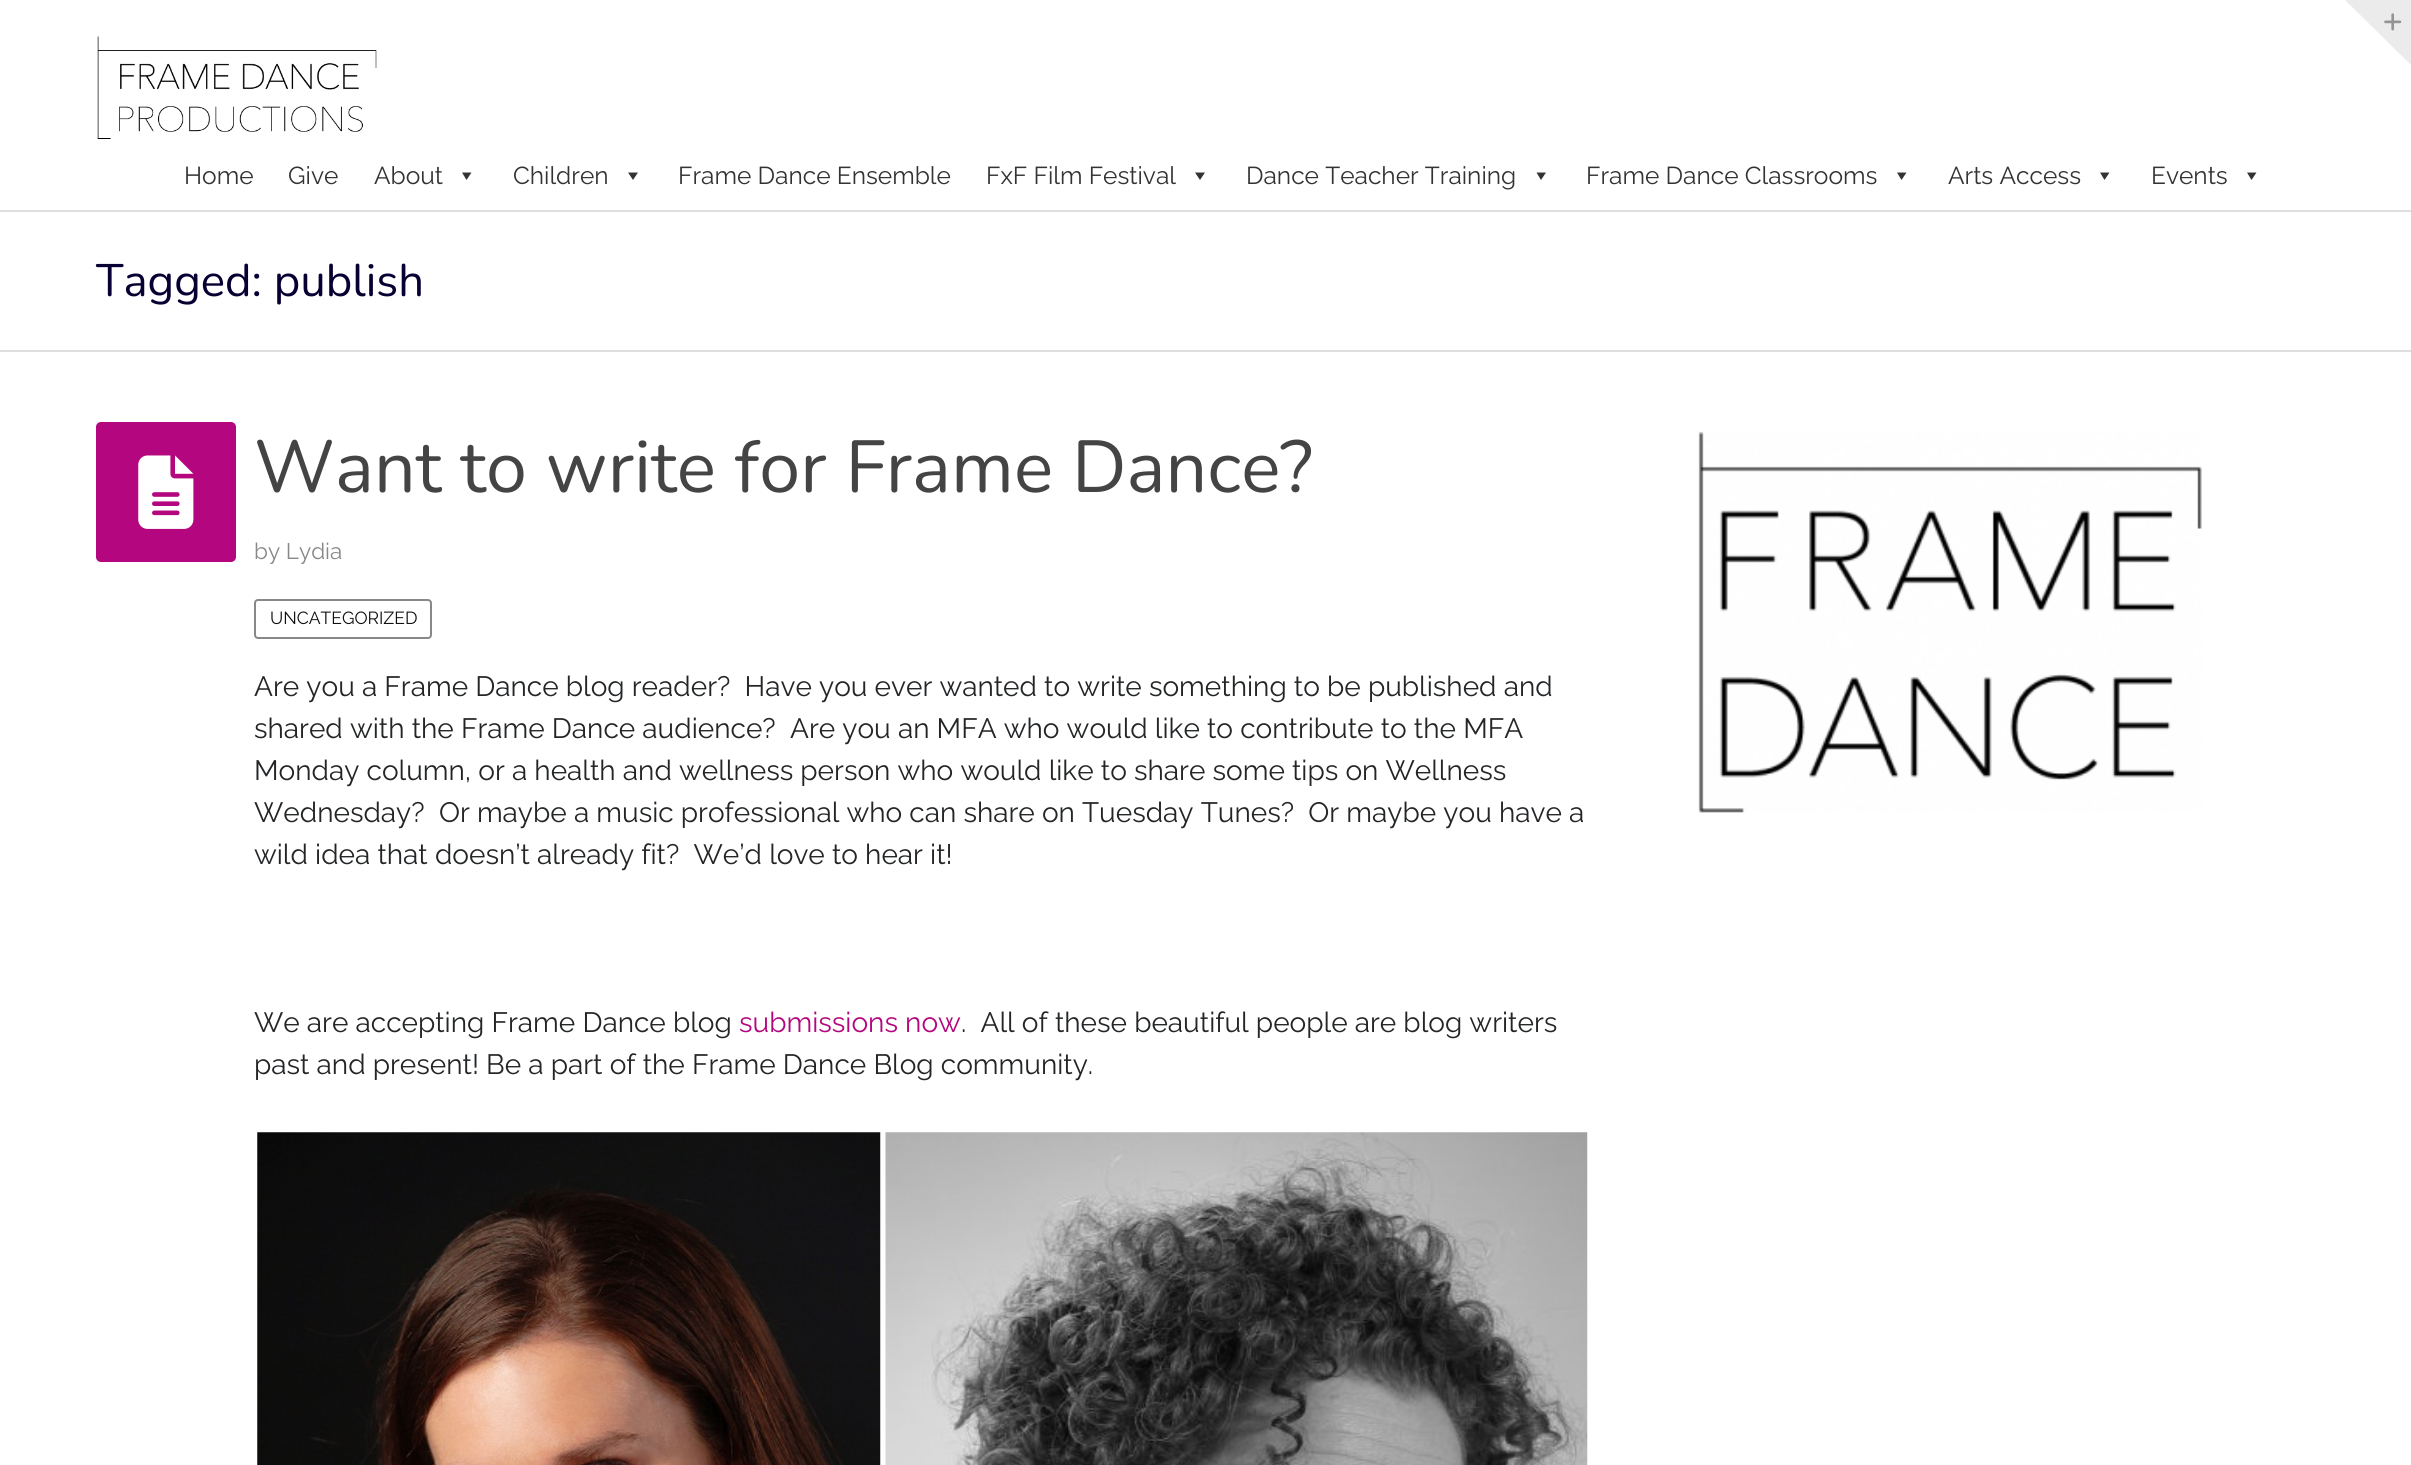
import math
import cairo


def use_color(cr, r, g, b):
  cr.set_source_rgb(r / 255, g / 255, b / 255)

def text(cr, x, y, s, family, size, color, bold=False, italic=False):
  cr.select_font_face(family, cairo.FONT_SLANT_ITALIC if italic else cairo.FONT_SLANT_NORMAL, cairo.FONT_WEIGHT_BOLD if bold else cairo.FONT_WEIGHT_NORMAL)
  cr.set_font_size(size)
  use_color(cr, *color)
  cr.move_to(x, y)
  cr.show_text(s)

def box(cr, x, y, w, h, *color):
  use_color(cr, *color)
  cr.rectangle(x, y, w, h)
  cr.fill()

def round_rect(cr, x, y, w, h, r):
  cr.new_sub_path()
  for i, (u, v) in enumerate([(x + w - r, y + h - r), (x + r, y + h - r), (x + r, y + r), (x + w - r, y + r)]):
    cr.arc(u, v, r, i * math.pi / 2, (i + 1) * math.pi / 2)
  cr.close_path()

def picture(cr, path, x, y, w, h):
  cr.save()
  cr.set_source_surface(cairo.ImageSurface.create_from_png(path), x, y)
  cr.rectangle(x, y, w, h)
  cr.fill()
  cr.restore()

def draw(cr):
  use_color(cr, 255, 255, 255)
  cr.paint()
  use_color(cr, 235, 235, 235)
  cr.new_path()
  cr.move_to(2345, 0)
  cr.line_to(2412, 0)
  cr.line_to(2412, 66)
  cr.close_path()
  cr.fill()
  picture(cr, "img_01.png", 2384, 13, 18, 18)
  picture(cr, "img_02.png", 97, 36, 280, 103)
  use_color(cr, 51, 51, 51)
  cr.new_path()
  cr.move_to(471.5, 172.5)
  cr.line_to(466.5, 180)
  cr.line_to(462, 172.5)
  cr.close_path()
  cr.fill()
  cr.new_path()
  cr.move_to(638, 172.5)
  cr.line_to(633, 180)
  cr.line_to(628, 172.5)
  cr.close_path()
  cr.fill()
  cr.new_path()
  cr.move_to(1205, 172.5)
  cr.line_to(1200, 180)
  cr.line_to(1195, 172.5)
  cr.close_path()
  cr.fill()
  cr.new_path()
  cr.move_to(1546, 172.5)
  cr.line_to(1541, 180)
  cr.line_to(1536.5, 172.5)
  cr.close_path()
  cr.fill()
  cr.new_path()
  cr.move_to(1906.5, 172.5)
  cr.line_to(1901.5, 180)
  cr.line_to(1897, 172.5)
  cr.close_path()
  cr.fill()
  cr.new_path()
  cr.move_to(2109.5, 172.5)
  cr.line_to(2104.5, 180)
  cr.line_to(2100, 172.5)
  cr.close_path()
  cr.fill()
  cr.new_path()
  cr.move_to(2256.5, 172.5)
  cr.line_to(2251.5, 180)
  cr.line_to(2247, 172.5)
  cr.close_path()
  cr.fill()
  box(cr, 0, 210, 2411, 2, 222, 222, 222)
  box(cr, 0, 350, 2411, 2, 222, 222, 222)
  use_color(cr, 179, 6, 127)
  round_rect(cr, 96, 422, 140, 140, 5)
  cr.fill()
  picture(cr, "img_03.png", 138, 455, 56, 74)
  round_rect(cr, 255, 600, 176, 38, 3)
  use_color(cr, 136, 136, 136)
  cr.stroke()
  picture(cr, "img_04.png", 257, 1132, 624, 333)
  picture(cr, "img_05.png", 885, 1132, 703, 333)
  picture(cr, "img_06.png", 1698, 431, 504, 382)
  text(cr, 184, 184, "Home", "Raleway", 24.5, (51, 51, 51))
  text(cr, 288, 184, "Give", "Raleway", 24.5, (51, 51, 51))
  text(cr, 374, 184, "About", "Raleway", 24.5, (51, 51, 51))
  text(cr, 513, 184, "Children", "Raleway", 24.5, (51, 51, 51))
  text(cr, 678, 184, "Frame Dance Ensemble", "Raleway", 24.5, (51, 51, 51))
  text(cr, 986, 184, "FxF Film Festival", "Raleway", 24.5, (51, 51, 51))
  text(cr, 1246, 184, "Dance Teacher Training", "Raleway", 24.5, (51, 51, 51))
  text(cr, 1586, 184, "Frame Dance Classrooms", "Raleway", 24.5, (51, 51, 51))
  text(cr, 1948, 184, "Arts Access", "Raleway", 24.5, (51, 51, 51))
  text(cr, 2151, 184, "Events", "Raleway", 24.5, (51, 51, 51))
  text(cr, 96, 296, "Tagged: publish", "Nunito", 45.5, (8, 0, 50))
  text(cr, 254, 492, "Want to write for Frame Dance?", "Nunito", 73.5, (68, 68, 68))
  text(cr, 254, 559, "by Lydia", "Raleway", 22.5, (136, 136, 136))
  text(cr, 270, 624, "UNCATEGORIZED", "Raleway", 17.5, (17, 17, 17))
  text(cr, 254, 696, "Are you a Frame Dance blog reader?  Have you ever wanted to write something to be published and", "Raleway", 28, (35, 37, 39))
  text(cr, 254, 738, "shared with the Frame Dance audience?  Are you an MFA who would like to contribute to the MFA", "Raleway", 28, (35, 37, 39))
  text(cr, 254, 780, "Monday column, or a health and wellness person who would like to share some tips on Wellness", "Raleway", 28, (35, 37, 39))
  text(cr, 254, 822, "Wednesday?  Or maybe a music professional who can share on Tuesday Tunes?  Or maybe you have a", "Raleway", 28, (35, 37, 39))
  text(cr, 254, 864, "wild idea that doesn’t already fit?  We’d love to hear it!", "Raleway", 28, (35, 37, 39))
  text(cr, 254, 1032, "We are accepting Frame Dance blog", "Raleway", 28, (35, 37, 39))
  text(cr, 739, 1032, "submissions now", "Raleway", 28, (179, 6, 127))
  text(cr, 961, 1032, ".  All of these beautiful people are blog writers", "Raleway", 28, (35, 37, 39))
  text(cr, 254, 1074, "past and present! Be a part of the Frame Dance Blog community.", "Raleway", 28, (35, 37, 39))


surface = cairo.ImageSurface(cairo.FORMAT_RGB24, 2411, 1465)
cr = cairo.Context(surface)
options = cairo.FontOptions()
options.set_hint_metrics(cairo.HINT_METRICS_OFF)
options.set_hint_style(cairo.HINT_STYLE_NONE)
cr.set_font_options(options)
cr.set_miter_limit(4)
draw(cr)
surface.write_to_png("out.png")
